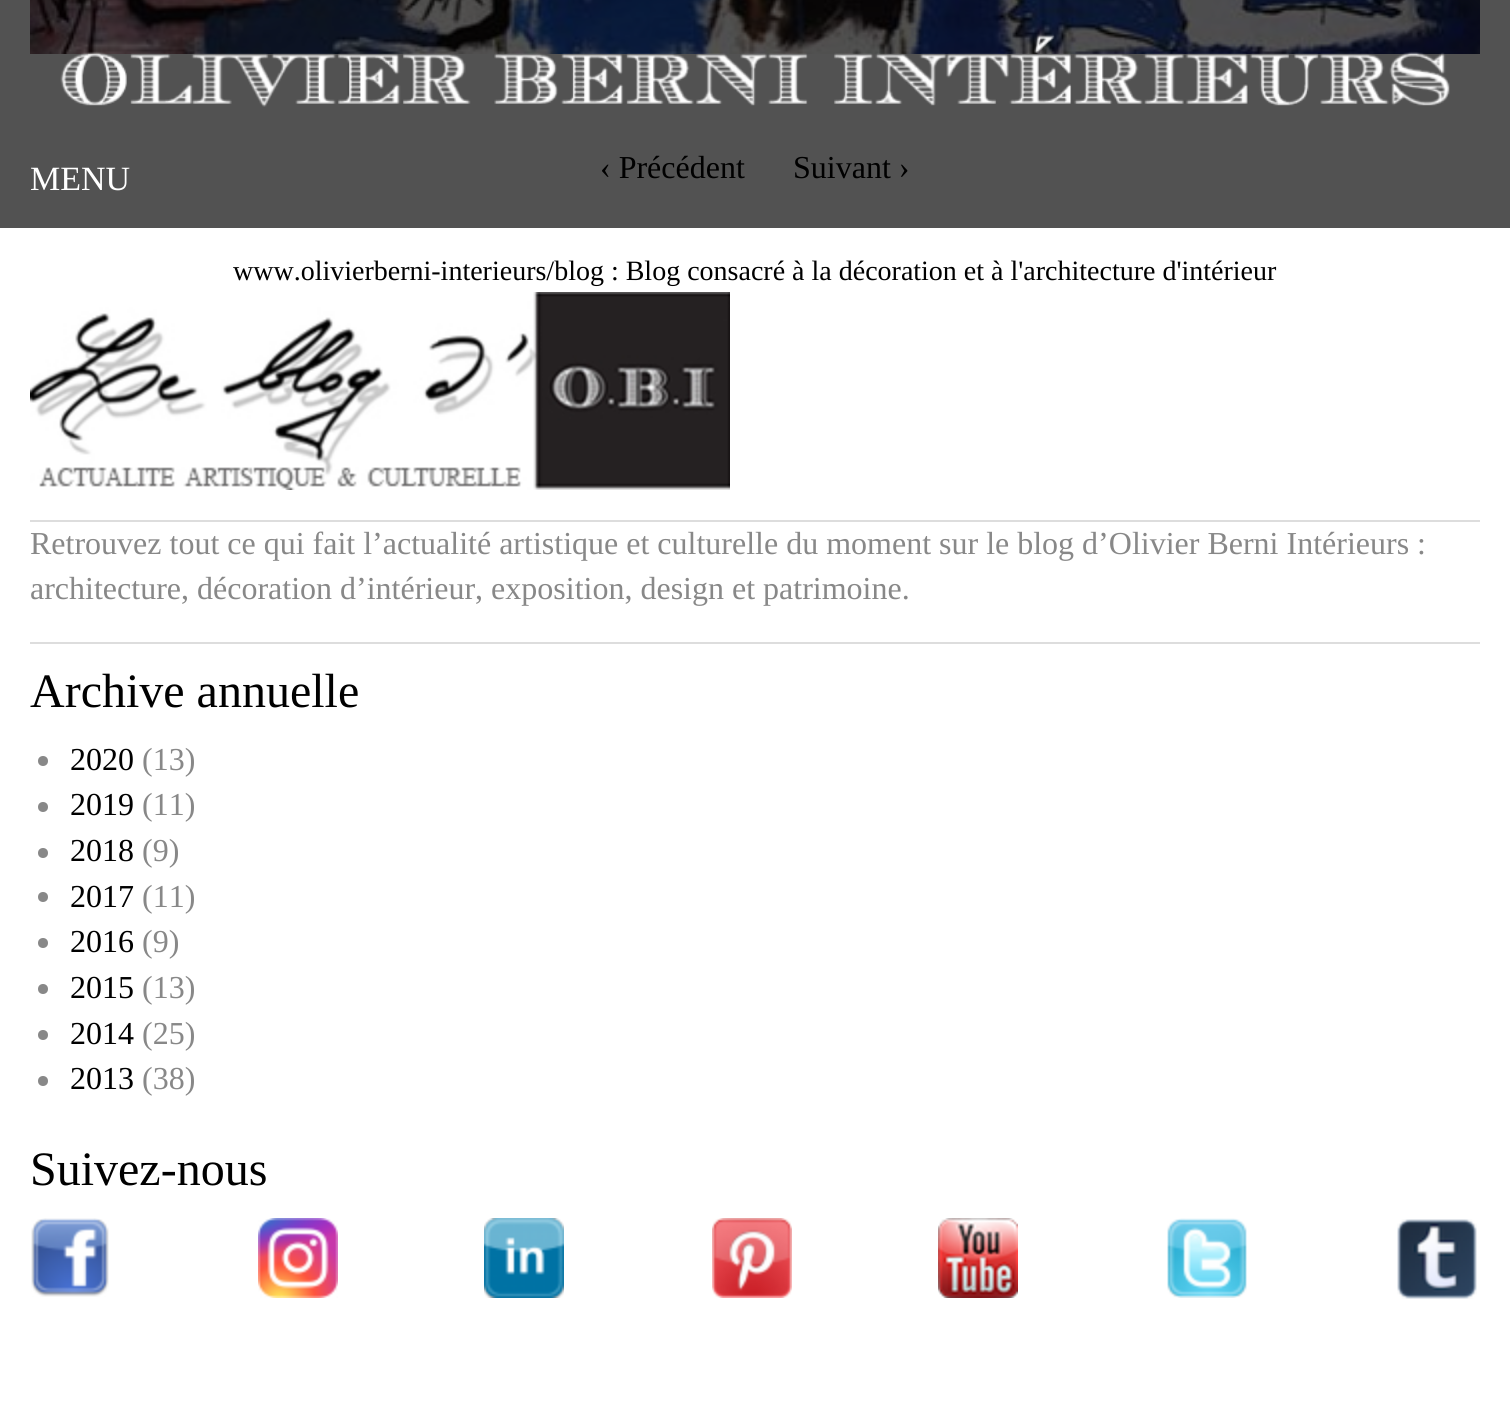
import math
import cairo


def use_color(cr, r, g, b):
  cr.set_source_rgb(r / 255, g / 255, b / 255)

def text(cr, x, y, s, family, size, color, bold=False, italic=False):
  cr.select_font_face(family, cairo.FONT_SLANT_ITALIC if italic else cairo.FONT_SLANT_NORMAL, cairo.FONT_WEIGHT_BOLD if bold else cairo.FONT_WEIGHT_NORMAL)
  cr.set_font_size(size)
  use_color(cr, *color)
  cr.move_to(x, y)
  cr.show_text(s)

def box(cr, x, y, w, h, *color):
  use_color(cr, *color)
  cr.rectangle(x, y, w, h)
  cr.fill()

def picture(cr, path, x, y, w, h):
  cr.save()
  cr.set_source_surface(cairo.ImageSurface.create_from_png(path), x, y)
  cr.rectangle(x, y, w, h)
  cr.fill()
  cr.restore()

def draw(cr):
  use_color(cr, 255, 255, 255)
  cr.paint()
  box(cr, 0, 0, 1510, 228, 82, 82, 82)
  picture(cr, "img_01.png", 30, 0, 1450, 54)
  box(cr, 30, 520, 1450, 2, 221, 221, 221)
  picture(cr, "img_02.png", 30, 292, 700, 198)
  box(cr, 30, 642, 1450, 2, 221, 221, 221)
  use_color(cr, 136, 136, 136)
  cr.arc(43, 761, 5, 0, 2 * math.pi)
  cr.fill()
  cr.arc(43, 807, 5, 0, 2 * math.pi)
  cr.fill()
  cr.arc(43, 853, 5, 0, 2 * math.pi)
  cr.fill()
  cr.arc(43, 897, 5, 0, 2 * math.pi)
  cr.fill()
  cr.arc(43, 943, 5, 0, 2 * math.pi)
  cr.fill()
  cr.arc(43, 989, 5, 0, 2 * math.pi)
  cr.fill()
  cr.arc(43, 1035, 5, 0, 2 * math.pi)
  cr.fill()
  cr.arc(43, 1081, 5, 0, 2 * math.pi)
  cr.fill()
  picture(cr, "img_03.png", 31, 1218, 78, 79)
  picture(cr, "img_04.png", 258, 1218, 80, 80)
  picture(cr, "img_05.png", 484, 1218, 80, 80)
  picture(cr, "img_06.png", 712, 1218, 80, 80)
  picture(cr, "img_07.png", 938, 1218, 80, 80)
  picture(cr, "img_08.png", 1167, 1218, 80, 80)
  picture(cr, "img_09.png", 1397, 1219, 80, 80)
  picture(cr, "img_10.png", 60, 34, 1390, 73)
  text(cr, 600, 178, "‹ Précédent", "Liberation Serif", 32, (0, 0, 0))
  text(cr, 793, 178, "Suivant ›", "Liberation Serif", 32, (0, 0, 0))
  text(cr, 233, 280, "www.olivierberni-interieurs/blog : Blog consacré à la décoration et à l'architecture d'intérieur", "Liberation Serif", 28, (0, 0, 0))
  text(cr, 30, 554, "Retrouvez tout ce qui fait l’actualité artistique et culturelle du moment sur le blog d’Olivier Berni Intérieurs :", "Liberation Serif", 32, (136, 136, 136))
  text(cr, 30, 599, "architecture, décoration d’intérieur, exposition, design et patrimoine.", "Liberation Serif", 32, (136, 136, 136))
  text(cr, 30, 707, "Archive annuelle", "Liberation Serif", 48, (0, 0, 0))
  text(cr, 70, 770, "2020", "Liberation Serif", 32, (0, 0, 0))
  text(cr, 142, 770, "(13)", "Liberation Serif", 32, (136, 136, 136))
  text(cr, 70, 815, "2019", "Liberation Serif", 32, (0, 0, 0))
  text(cr, 142, 815, "(11)", "Liberation Serif", 32, (136, 136, 136))
  text(cr, 70, 861, "2018", "Liberation Serif", 32, (0, 0, 0))
  text(cr, 142, 861, "(9)", "Liberation Serif", 32, (136, 136, 136))
  text(cr, 70, 907, "2017", "Liberation Serif", 32, (0, 0, 0))
  text(cr, 142, 907, "(11)", "Liberation Serif", 32, (136, 136, 136))
  text(cr, 70, 952, "2016", "Liberation Serif", 32, (0, 0, 0))
  text(cr, 142, 952, "(9)", "Liberation Serif", 32, (136, 136, 136))
  text(cr, 70, 998, "2015", "Liberation Serif", 32, (0, 0, 0))
  text(cr, 142, 998, "(13)", "Liberation Serif", 32, (136, 136, 136))
  text(cr, 70, 1044, "2014", "Liberation Serif", 32, (0, 0, 0))
  text(cr, 142, 1044, "(25)", "Liberation Serif", 32, (136, 136, 136))
  text(cr, 70, 1089, "2013", "Liberation Serif", 32, (0, 0, 0))
  text(cr, 142, 1089, "(38)", "Liberation Serif", 32, (136, 136, 136))
  text(cr, 30, 1185, "Suivez-nous", "Liberation Serif", 48, (0, 0, 0))
  text(cr, 30, 190, "MENU", "Liberation Serif", 34, (255, 255, 255))


surface = cairo.ImageSurface(cairo.FORMAT_RGB24, 1510, 1411)
cr = cairo.Context(surface)
options = cairo.FontOptions()
options.set_hint_metrics(cairo.HINT_METRICS_OFF)
options.set_hint_style(cairo.HINT_STYLE_NONE)
cr.set_font_options(options)
cr.set_miter_limit(4)
draw(cr)
surface.write_to_png("out.png")
